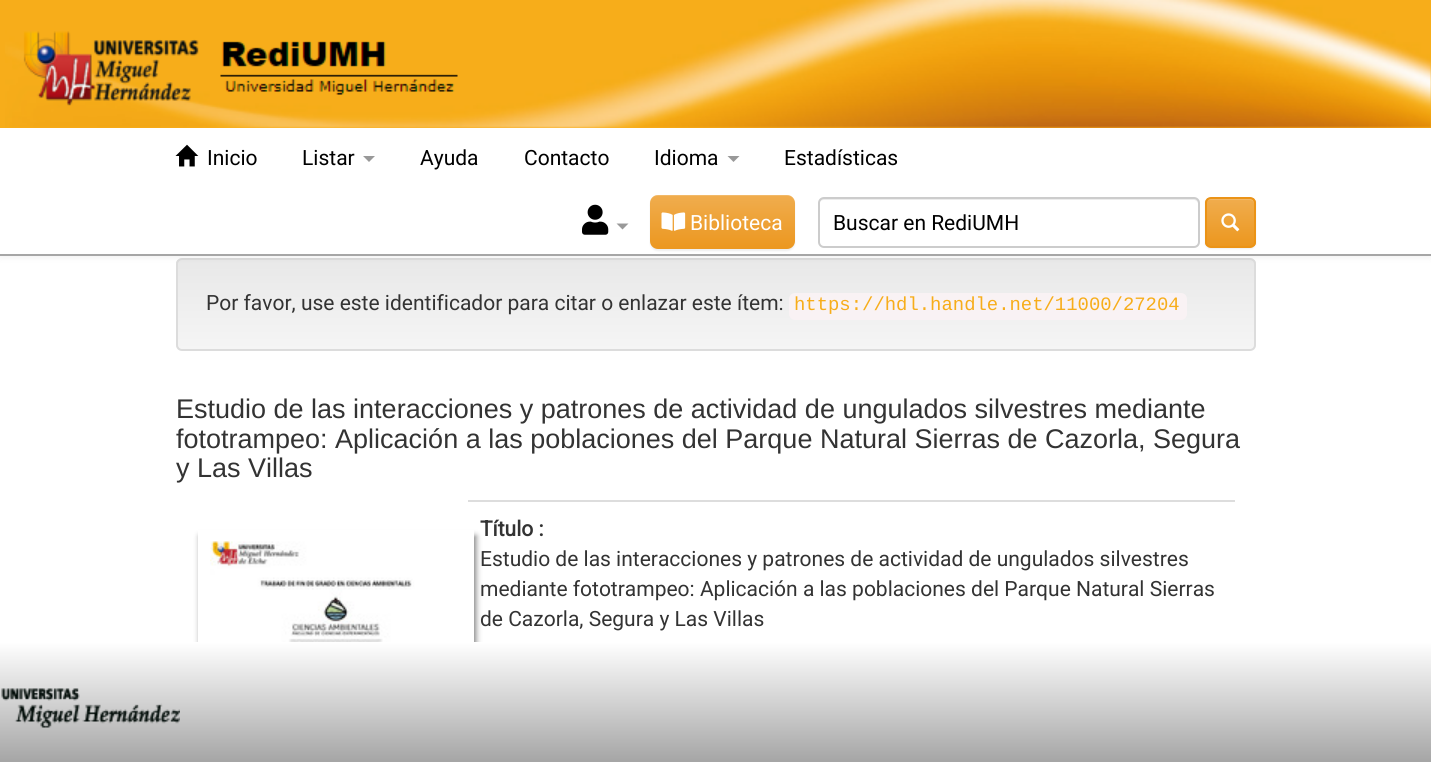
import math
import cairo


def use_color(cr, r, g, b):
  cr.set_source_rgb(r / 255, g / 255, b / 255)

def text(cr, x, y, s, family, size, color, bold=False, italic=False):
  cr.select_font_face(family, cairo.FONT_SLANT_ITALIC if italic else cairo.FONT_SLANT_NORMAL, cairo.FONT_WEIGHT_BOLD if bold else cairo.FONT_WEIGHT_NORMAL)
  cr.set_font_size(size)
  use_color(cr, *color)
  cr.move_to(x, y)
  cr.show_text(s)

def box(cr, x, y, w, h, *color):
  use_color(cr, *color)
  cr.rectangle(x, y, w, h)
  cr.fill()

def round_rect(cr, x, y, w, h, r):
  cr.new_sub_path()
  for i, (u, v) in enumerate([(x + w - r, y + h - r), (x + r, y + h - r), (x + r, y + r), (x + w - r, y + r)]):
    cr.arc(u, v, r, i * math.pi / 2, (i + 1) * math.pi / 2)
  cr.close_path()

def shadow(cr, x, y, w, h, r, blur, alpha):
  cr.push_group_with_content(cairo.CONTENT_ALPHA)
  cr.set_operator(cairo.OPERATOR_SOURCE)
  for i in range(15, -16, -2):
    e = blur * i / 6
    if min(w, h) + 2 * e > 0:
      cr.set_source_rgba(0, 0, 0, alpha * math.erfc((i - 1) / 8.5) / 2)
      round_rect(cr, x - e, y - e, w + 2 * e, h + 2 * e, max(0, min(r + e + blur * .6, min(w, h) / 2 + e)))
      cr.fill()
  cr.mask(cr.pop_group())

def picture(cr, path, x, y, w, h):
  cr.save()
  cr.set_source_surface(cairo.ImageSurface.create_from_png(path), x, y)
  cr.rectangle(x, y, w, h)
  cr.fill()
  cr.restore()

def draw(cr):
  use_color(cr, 255, 255, 255)
  cr.paint()
  cr.save()
  round_rect(cr, 176, 258, 1080, 93, 6)
  cr.clip()
  gradient = cairo.LinearGradient(716, 259, 716, 350)
  gradient.add_color_stop_rgba(0, 0.91, 0.91, 0.91, 1)
  gradient.add_color_stop_rgba(1, 0.961, 0.961, 0.961, 1)
  cr.set_source(gradient)
  cr.rectangle(176, 260, 1080, 90)
  cr.fill()
  cr.restore()
  round_rect(cr, 177, 259, 1078, 91, 5)
  use_color(cr, 220, 220, 220)
  cr.stroke()
  use_color(cr, 0, 0, 0)
  shadow(cr, 0, 2, 1431, 255, 0, 4, 0.07)
  box(cr, 0, 128, 1431, 126, 255, 255, 255)
  box(cr, 0, 254, 1431, 2, 166, 166, 166)
  box(cr, 0, 0, 1431, 128, 247, 173, 26)
  picture(cr, "img_01.png", 5, 0, 1426, 128)
  picture(cr, "img_02.png", 23, 31, 435, 75)
  picture(cr, "img_03.png", 175, 144, 24, 23)
  use_color(cr, 153, 153, 153)
  cr.new_path()
  cr.move_to(363, 156)
  cr.line_to(375, 156)
  cr.line_to(369, 162)
  cr.close_path()
  cr.fill()
  cr.new_path()
  cr.move_to(727.5, 156)
  cr.line_to(739.5, 156)
  cr.line_to(733.5, 162)
  cr.close_path()
  cr.fill()
  picture(cr, "img_04.png", 582, 204, 27, 31)
  cr.new_path()
  cr.move_to(616.5, 223.5)
  cr.line_to(628.5, 223.5)
  cr.line_to(622.5, 229.5)
  cr.close_path()
  cr.fill()
  use_color(cr, 0, 0, 0)
  shadow(cr, 650, 197, 145, 54, 8, 1, 0.07)
  gradient = cairo.LinearGradient(722, 195, 722, 249)
  gradient.add_color_stop_rgba(0, 0.941, 0.678, 0.306, 1)
  gradient.add_color_stop_rgba(1, 0.925, 0.592, 0.122, 1)
  cr.set_source(gradient)
  round_rect(cr, 650, 195, 145, 54, 8)
  cr.fill()
  cr.set_source_rgba(1, 1, 1, 0.15)
  cr.new_path()
  cr.move_to(657, 196)
  cr.line_to(788, 196)
  cr.curve_to(792, 196, 795, 200, 795, 204)
  cr.curve_to(795, 190, 773, 195, 766, 195)
  cr.line_to(680, 195)
  cr.curve_to(672, 195, 650, 190, 650, 204)
  cr.curve_to(650, 200, 653, 196, 657, 196)
  cr.close_path()
  cr.fill()
  picture(cr, "img_05.png", 661, 212, 25, 19)
  use_color(cr, 236, 236, 236)
  cr.new_path()
  cr.move_to(824, 200)
  cr.line_to(1194, 200)
  cr.curve_to(1196, 200, 1198, 202, 1198, 204)
  cr.line_to(1198, 244)
  cr.curve_to(1199, 243, 1199, 242, 1199, 241)
  cr.line_to(1199, 203)
  cr.curve_to(1199, 200, 1197, 198, 1194, 198)
  cr.line_to(824, 198)
  cr.curve_to(821, 198, 819, 200, 819, 203)
  cr.line_to(819, 204)
  cr.curve_to(819, 202, 821, 200, 824, 200)
  cr.close_path()
  cr.fill()
  round_rect(cr, 819, 198, 380, 49, 5)
  use_color(cr, 204, 204, 204)
  cr.stroke()
  use_color(cr, 0, 0, 0)
  shadow(cr, 1205, 198, 51, 51, 6, 1, 0.07)
  cr.save()
  round_rect(cr, 1205, 197, 51, 51, 6)
  cr.clip()
  gradient = cairo.LinearGradient(1230, 198, 1230, 246)
  gradient.add_color_stop_rgba(0, 0.941, 0.678, 0.306, 1)
  gradient.add_color_stop_rgba(1, 0.925, 0.592, 0.122, 1)
  cr.set_source(gradient)
  cr.rectangle(1205, 198, 51, 48)
  cr.fill()
  cr.restore()
  cr.set_source_rgba(1, 1, 1, 0.15)
  cr.new_path()
  cr.move_to(1210, 200)
  cr.line_to(1250, 200)
  cr.curve_to(1252, 200, 1254, 202, 1254, 204)
  cr.curve_to(1254, 197, 1248, 198, 1243, 198)
  cr.line_to(1217, 198)
  cr.curve_to(1212, 198, 1206, 197, 1206, 204)
  cr.curve_to(1206, 202, 1208, 200, 1210, 200)
  cr.close_path()
  cr.fill()
  round_rect(cr, 1206, 198, 49, 49, 5)
  use_color(cr, 235, 147, 22)
  cr.stroke()
  picture(cr, "img_06.png", 1221, 213, 19, 19)
  use_color(cr, 249, 242, 244)
  round_rect(cr, 789, 293, 398, 27, 6)
  cr.fill()
  cr.save()
  cr.set_fill_rule(cairo.FILL_RULE_EVEN_ODD)
  cr.new_path()
  cr.move_to(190, 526)
  cr.line_to(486, 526)
  cr.line_to(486, 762)
  cr.line_to(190, 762)
  cr.close_path()
  cr.move_to(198, 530)
  cr.line_to(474, 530)
  cr.line_to(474, 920)
  cr.line_to(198, 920)
  cr.close_path()
  cr.clip()
  use_color(cr, 128, 128, 128)
  shadow(cr, 200, 536, 276, 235, 0, 3, 1)
  cr.restore()
  picture(cr, "img_07.png", 210, 541, 228, 101)
  box(cr, 468, 500, 767, 2, 221, 221, 221)
  gradient = cairo.LinearGradient(716, 642, 716, 761)
  gradient.add_color_stop_rgba(0, 1, 1, 1, 1)
  gradient.add_color_stop_rgba(1, 0.651, 0.651, 0.651, 1)
  cr.set_source(gradient)
  cr.rectangle(0, 642, 1431, 119)
  cr.fill()
  box(cr, 0, 761, 1431, 1, 166, 166, 166)
  picture(cr, "img_08.png", 1, 688, 179, 40)
  text(cr, 207, 165, "Inicio", "Roboto", 21, (0, 0, 0))
  text(cr, 302, 165, "Listar", "Roboto", 21, (0, 0, 0))
  text(cr, 420, 165, "Ayuda", "Roboto", 21, (0, 0, 0))
  text(cr, 524, 165, "Contacto", "Roboto", 21, (0, 0, 0))
  text(cr, 654, 165, "Idioma", "Roboto", 21, (0, 0, 0))
  text(cr, 784, 165, "Estadísticas", "Roboto", 21, (0, 0, 0))
  text(cr, 690, 230, "Biblioteca", "Roboto", 21, (255, 255, 255))
  text(cr, 833, 230, "Buscar en RediUMH", "Roboto", 21, (0, 0, 0))
  text(cr, 206, 310, "Por favor, use este identificador para citar o enlazar este ítem:", "Roboto", 21, (51, 51, 51))
  text(cr, 794, 310, "https://hdl.handle.net/11000/27204", "Liberation Mono", 18.9, (247, 173, 26))
  text(cr, 176, 418, "Estudio de las interacciones y patrones de actividad de ungulados silvestres mediante", "Liberation Sans", 27, (51, 51, 51))
  text(cr, 176, 448, "fototrampeo: Aplicación a las poblaciones del Parque Natural Sierras de Cazorla, Segura", "Liberation Sans", 27, (51, 51, 51))
  text(cr, 176, 477, "y Las Villas", "Liberation Sans", 27, (51, 51, 51))
  text(cr, 480, 536, "Título :", "Roboto", 21, (51, 51, 51), bold=True)
  text(cr, 480, 566, "Estudio de las interacciones y patrones de actividad de ungulados silvestres", "Roboto", 21, (51, 51, 51))
  text(cr, 480, 596, "mediante fototrampeo: Aplicación a las poblaciones del Parque Natural Sierras", "Roboto", 21, (51, 51, 51))
  text(cr, 480, 626, "de Cazorla, Segura y Las Villas", "Roboto", 21, (51, 51, 51))


surface = cairo.ImageSurface(cairo.FORMAT_RGB24, 1431, 762)
cr = cairo.Context(surface)
options = cairo.FontOptions()
options.set_hint_metrics(cairo.HINT_METRICS_OFF)
options.set_hint_style(cairo.HINT_STYLE_NONE)
cr.set_font_options(options)
cr.set_miter_limit(4)
draw(cr)
surface.write_to_png("out.png")
